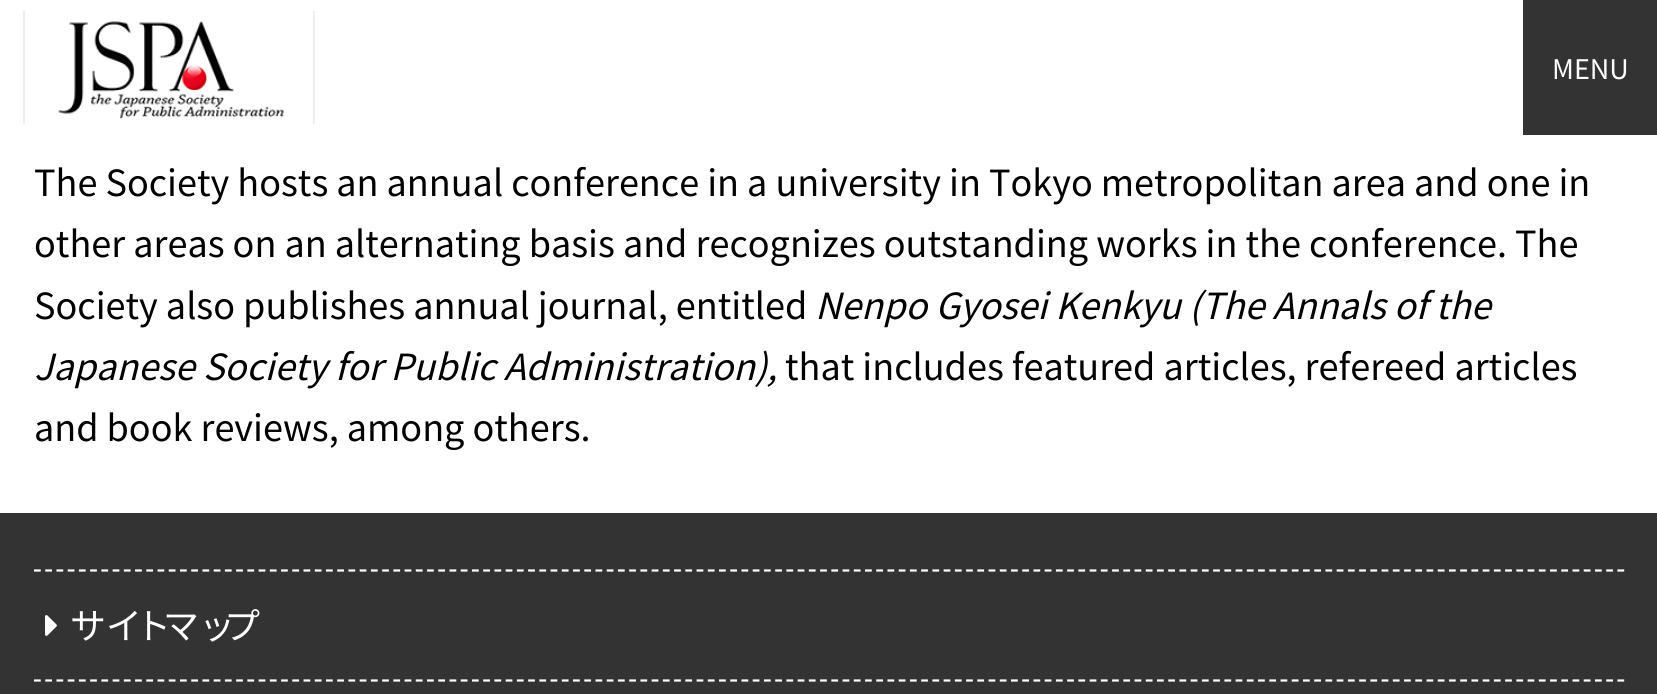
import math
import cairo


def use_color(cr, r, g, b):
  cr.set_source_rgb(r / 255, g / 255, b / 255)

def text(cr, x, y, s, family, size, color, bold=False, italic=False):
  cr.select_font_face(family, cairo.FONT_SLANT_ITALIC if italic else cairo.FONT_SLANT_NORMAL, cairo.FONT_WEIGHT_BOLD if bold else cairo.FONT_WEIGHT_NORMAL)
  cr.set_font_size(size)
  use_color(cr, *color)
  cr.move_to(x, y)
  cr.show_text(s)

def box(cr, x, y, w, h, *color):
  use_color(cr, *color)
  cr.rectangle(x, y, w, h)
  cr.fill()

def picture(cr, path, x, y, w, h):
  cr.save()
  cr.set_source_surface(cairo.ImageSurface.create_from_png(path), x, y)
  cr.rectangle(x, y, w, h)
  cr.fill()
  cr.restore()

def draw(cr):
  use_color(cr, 255, 255, 255)
  cr.paint()
  box(cr, 313, 11, 2, 113, 238, 238, 238)
  box(cr, 23, 11, 2, 113, 238, 238, 238)
  picture(cr, "img_01.png", 58, 21, 226, 98)
  box(cr, 1523, 0, 134, 135, 51, 51, 51)
  box(cr, 0, 513, 1657, 181, 51, 51, 51)
  cr.new_path()
  cr.move_to(34, 570.5)
  cr.line_to(1624.5, 570.5)
  use_color(cr, 255, 255, 255)
  cr.set_line_width(2.2)
  cr.set_dash([6.75, 4.48])
  cr.stroke()
  picture(cr, "img_02.png", 45, 615, 12, 21)
  cr.new_path()
  cr.move_to(34, 680.5)
  cr.line_to(1624.5, 680.5)
  cr.stroke()
  text(cr, 1552, 79, "MENU", "Noto Sans JP", 27, (255, 255, 255))
  text(cr, 34, 196, "The Society hosts an annual conference in a university in Tokyo metropolitan area and one in", "Noto Sans JP", 36, (0, 0, 0))
  text(cr, 34, 257, "other areas on an alternating basis and recognizes outstanding works in the conference. The", "Noto Sans JP", 36, (0, 0, 0))
  text(cr, 34, 319, "Society also publishes annual journal, entitled", "Noto Sans JP", 36, (0, 0, 0))
  text(cr, 815, 319, "Nenpo Gyosei Kenkyu (The Annals of the", "Noto Sans JP", 36, (0, 0, 0), italic=True)
  text(cr, 34, 380, "Japanese Society for Public Administration),", "Noto Sans JP", 36, (0, 0, 0), italic=True)
  text(cr, 785, 380, "that includes featured articles, refereed articles", "Noto Sans JP", 36, (0, 0, 0))
  text(cr, 34, 441, "and book reviews, among others.", "Noto Sans JP", 36, (0, 0, 0))
  text(cr, 70, 639, "サイ", "Noto Sans JP", 36, (255, 255, 255))
  text(cr, 135, 639, "ト", "Noto Sans JP", 36, (255, 255, 255))
  text(cr, 163, 639, "マッ", "Noto Sans JP", 36, (255, 255, 255))
  text(cr, 224, 639, "プ", "Noto Sans JP", 36, (255, 255, 255))


surface = cairo.ImageSurface(cairo.FORMAT_RGB24, 1657, 694)
cr = cairo.Context(surface)
options = cairo.FontOptions()
options.set_hint_metrics(cairo.HINT_METRICS_OFF)
options.set_hint_style(cairo.HINT_STYLE_NONE)
cr.set_font_options(options)
cr.set_miter_limit(4)
draw(cr)
surface.write_to_png("out.png")
